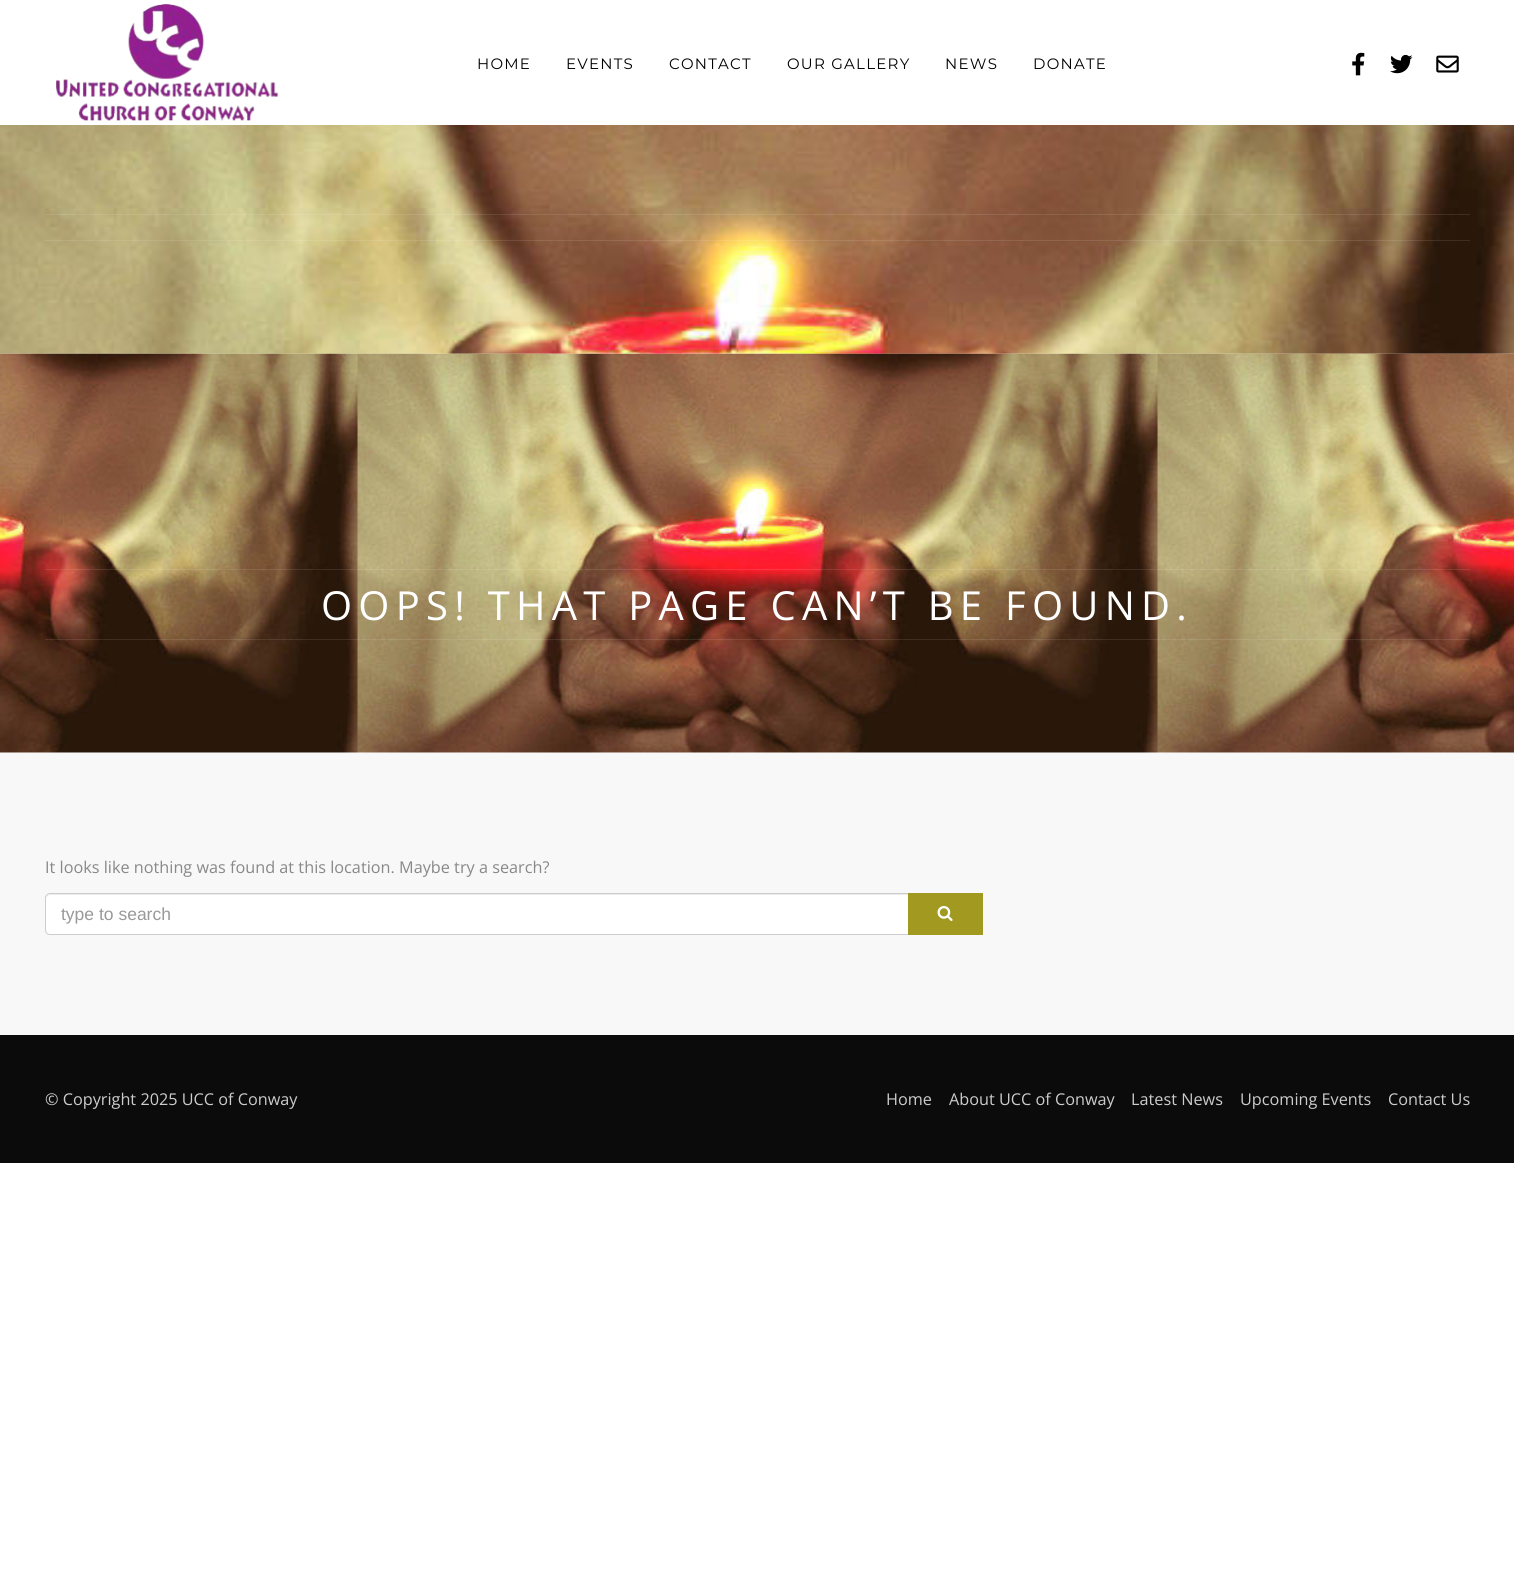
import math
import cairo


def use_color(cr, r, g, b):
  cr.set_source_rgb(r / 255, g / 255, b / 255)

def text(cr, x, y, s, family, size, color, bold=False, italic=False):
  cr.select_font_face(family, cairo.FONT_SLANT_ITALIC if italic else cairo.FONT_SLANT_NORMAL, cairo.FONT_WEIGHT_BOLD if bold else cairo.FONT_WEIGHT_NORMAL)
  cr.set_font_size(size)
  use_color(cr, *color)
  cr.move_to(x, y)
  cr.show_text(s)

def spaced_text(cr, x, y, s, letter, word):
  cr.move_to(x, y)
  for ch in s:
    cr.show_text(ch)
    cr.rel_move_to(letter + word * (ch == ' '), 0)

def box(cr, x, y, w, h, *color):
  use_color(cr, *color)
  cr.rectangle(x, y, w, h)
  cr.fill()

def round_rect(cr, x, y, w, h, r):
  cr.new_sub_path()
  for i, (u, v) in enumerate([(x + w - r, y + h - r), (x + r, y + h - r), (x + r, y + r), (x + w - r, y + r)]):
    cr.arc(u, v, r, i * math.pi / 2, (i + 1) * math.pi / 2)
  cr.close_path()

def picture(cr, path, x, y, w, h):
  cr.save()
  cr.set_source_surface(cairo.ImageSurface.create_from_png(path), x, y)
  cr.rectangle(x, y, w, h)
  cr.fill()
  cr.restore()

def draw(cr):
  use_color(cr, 255, 255, 255)
  cr.paint()
  picture(cr, "img_01.png", 56, 4, 223, 117)
  picture(cr, "img_02.png", 1352, 52, 13, 24)
  picture(cr, "img_03.png", 1390, 54, 23, 20)
  picture(cr, "img_04.png", 1436, 55, 23, 18)
  picture(cr, "img_05.png", 0, 125, 1514, 229)
  cr.set_source_rgba(1, 1, 1, 0.1)
  cr.rectangle(45, 214, 1425, 1)
  cr.fill()
  cr.rectangle(45, 240, 1425, 1)
  cr.fill()
  picture(cr, "img_06.png", 0, 353, 1514, 400)
  cr.rectangle(45, 569, 1425, 1)
  cr.fill()
  cr.rectangle(45, 639, 1425, 1)
  cr.fill()
  box(cr, 0, 753, 1514, 282, 248, 248, 248)
  use_color(cr, 255, 255, 255)
  round_rect(cr, 45, 893, 938, 42, 5)
  cr.fill()
  use_color(cr, 236, 236, 236)
  cr.new_path()
  cr.move_to(50, 895)
  cr.line_to(978, 895)
  cr.curve_to(980, 895, 981, 897, 981, 899)
  cr.curve_to(981, 896, 980, 894, 977, 894)
  cr.line_to(50, 894)
  cr.curve_to(47, 894, 46, 896, 46, 899)
  cr.curve_to(46, 897, 48, 895, 50, 895)
  cr.close_path()
  cr.fill()
  round_rect(cr, 45.5, 893.5, 937, 41, 4.5)
  use_color(cr, 204, 204, 204)
  cr.set_line_width(1)
  cr.stroke()
  box(cr, 908, 893, 75, 42, 162, 153, 32)
  picture(cr, "img_07.png", 937, 906, 16, 16)
  box(cr, 0, 1035, 1514, 128, 11, 11, 11)
  cr.select_font_face("Montserrat")
  cr.set_font_size(15)
  use_color(cr, 0, 0, 0)
  spaced_text(cr, 477, 69, "HOME", 1.25, 0)
  spaced_text(cr, 566, 69, "EVENTS", 1.25, 0)
  spaced_text(cr, 669, 69, "CONTACT", 1.25, 0)
  spaced_text(cr, 787, 69, "OUR GALLERY", 1.25, 0)
  spaced_text(cr, 945, 69, "NEWS", 1.25, 0)
  spaced_text(cr, 1033, 69, "DONATE", 1.25, 0)
  cr.select_font_face("Open Sans")
  cr.set_font_size(40)
  use_color(cr, 255, 255, 255)
  spaced_text(cr, 321, 620, "OOPS! THAT PAGE CAN’T BE FOUND.", 6.25, 0)
  text(cr, 45, 873, "It looks like nothing was found at this location. Maybe try a search?", "Open Sans", 16.25, (136, 136, 136))
  text(cr, 61, 920, "type to search", "Liberation Sans", 17.5, (153, 153, 153))
  text(cr, 45, 1105, "© Copyright 2025 UCC of Conway", "Open Sans", 16.25, (204, 204, 204))
  text(cr, 886, 1105, "Home", "Open Sans", 16.25, (204, 204, 204))
  text(cr, 949, 1105, "About UCC of Conway", "Open Sans", 16.25, (204, 204, 204))
  text(cr, 1131, 1105, "Latest News", "Open Sans", 16.25, (204, 204, 204))
  text(cr, 1240, 1105, "Upcoming Events", "Open Sans", 16.25, (204, 204, 204))
  text(cr, 1388, 1105, "Contact Us", "Open Sans", 16.25, (204, 204, 204))


surface = cairo.ImageSurface(cairo.FORMAT_RGB24, 1514, 1573)
cr = cairo.Context(surface)
options = cairo.FontOptions()
options.set_hint_metrics(cairo.HINT_METRICS_OFF)
options.set_hint_style(cairo.HINT_STYLE_NONE)
cr.set_font_options(options)
cr.set_miter_limit(4)
draw(cr)
surface.write_to_png("out.png")
